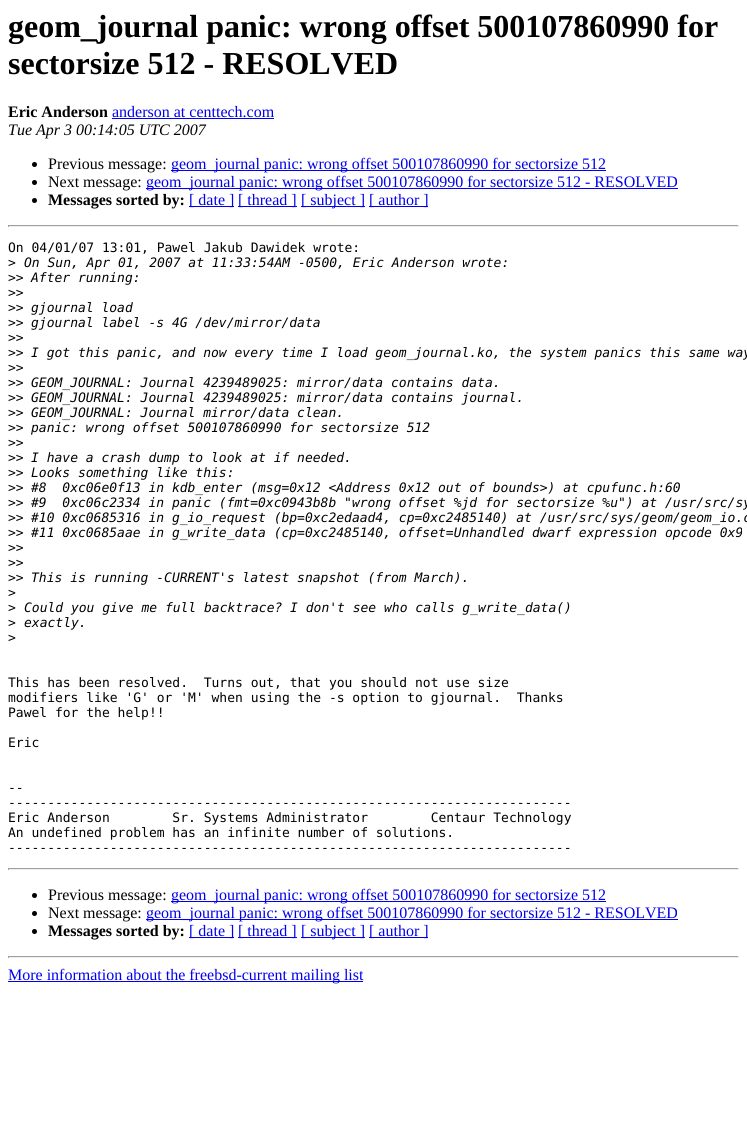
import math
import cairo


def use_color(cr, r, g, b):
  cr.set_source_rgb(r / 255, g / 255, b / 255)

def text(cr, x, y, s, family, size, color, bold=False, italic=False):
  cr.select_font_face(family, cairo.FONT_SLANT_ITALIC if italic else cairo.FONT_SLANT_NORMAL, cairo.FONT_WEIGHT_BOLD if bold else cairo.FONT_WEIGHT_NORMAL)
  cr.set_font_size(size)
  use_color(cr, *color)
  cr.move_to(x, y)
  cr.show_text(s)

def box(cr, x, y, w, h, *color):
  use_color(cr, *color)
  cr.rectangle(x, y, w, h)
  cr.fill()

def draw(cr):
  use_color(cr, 255, 255, 255)
  cr.paint()
  box(cr, 112, 118, 162, 1, 0, 0, 238)
  use_color(cr, 0, 0, 0)
  cr.arc(34.5, 164.5, 2.5, 0, 2 * math.pi)
  cr.fill()
  box(cr, 171, 170, 435, 1, 0, 0, 238)
  use_color(cr, 0, 0, 0)
  cr.arc(34.5, 182.5, 2.5, 0, 2 * math.pi)
  cr.fill()
  box(cr, 146, 188, 532, 1, 0, 0, 238)
  use_color(cr, 0, 0, 0)
  cr.arc(34.5, 200.5, 2.5, 0, 2 * math.pi)
  cr.fill()
  box(cr, 189, 206, 45, 1, 0, 0, 238)
  box(cr, 238, 206, 59, 1, 0, 0, 238)
  box(cr, 301, 206, 64, 1, 0, 0, 238)
  box(cr, 369, 206, 59, 1, 0, 0, 238)
  box(cr, 8, 225, 731, 1, 159, 159, 159)
  box(cr, 738, 225, 1, 2, 238, 238, 238)
  box(cr, 8, 226, 731, 1, 238, 238, 238)
  box(cr, 8, 225, 1, 2, 159, 159, 159)
  box(cr, 8, 868, 731, 1, 159, 159, 159)
  box(cr, 738, 868, 1, 2, 238, 238, 238)
  box(cr, 8, 869, 731, 1, 238, 238, 238)
  box(cr, 8, 868, 1, 2, 159, 159, 159)
  use_color(cr, 0, 0, 0)
  cr.arc(34.5, 895.5, 2.5, 0, 2 * math.pi)
  cr.fill()
  box(cr, 171, 901, 435, 1, 0, 0, 238)
  use_color(cr, 0, 0, 0)
  cr.arc(34.5, 913.5, 2.5, 0, 2 * math.pi)
  cr.fill()
  box(cr, 146, 919, 532, 1, 0, 0, 238)
  use_color(cr, 0, 0, 0)
  cr.arc(34.5, 931.5, 2.5, 0, 2 * math.pi)
  cr.fill()
  box(cr, 189, 937, 45, 1, 0, 0, 238)
  box(cr, 238, 937, 59, 1, 0, 0, 238)
  box(cr, 301, 937, 64, 1, 0, 0, 238)
  box(cr, 369, 937, 59, 1, 0, 0, 238)
  box(cr, 8, 956, 731, 1, 159, 159, 159)
  box(cr, 738, 956, 1, 2, 238, 238, 238)
  box(cr, 8, 957, 731, 1, 238, 238, 238)
  box(cr, 8, 956, 1, 2, 159, 159, 159)
  box(cr, 8, 981, 355, 1, 0, 0, 238)
  text(cr, 8, 37, "geom_journal panic: wrong offset 500107860990 for", "Liberation Serif", 32, (0, 0, 0), bold=True)
  text(cr, 8, 74, "sectorsize 512 - RESOLVED", "Liberation Serif", 32, (0, 0, 0), bold=True)
  text(cr, 8, 117, "Eric Anderson", "Liberation Serif", 16, (0, 0, 0), bold=True)
  text(cr, 112, 117, "anderson at centtech.com", "Liberation Serif", 16, (0, 0, 238))
  text(cr, 8, 135, "Tue Apr 3 00:14:05 UTC 2007", "Liberation Serif", 16, (0, 0, 0), italic=True)
  text(cr, 48, 169, "Previous message:", "Liberation Serif", 16, (0, 0, 0))
  text(cr, 171, 169, "geom_journal panic: wrong offset 500107860990 for sectorsize 512", "Liberation Serif", 16, (0, 0, 238))
  text(cr, 48, 187, "Next message:", "Liberation Serif", 16, (0, 0, 0))
  text(cr, 146, 187, "geom_journal panic: wrong offset 500107860990 for sectorsize 512 - RESOLVED", "Liberation Serif", 16, (0, 0, 238))
  text(cr, 48, 205, "Messages sorted by:", "Liberation Serif", 16, (0, 0, 0), bold=True)
  text(cr, 189, 205, "[ date ]", "Liberation Serif", 16, (0, 0, 238))
  text(cr, 238, 205, "[ thread ]", "Liberation Serif", 16, (0, 0, 238))
  text(cr, 301, 205, "[ subject ]", "Liberation Serif", 16, (0, 0, 238))
  text(cr, 369, 205, "[ author ]", "Liberation Serif", 16, (0, 0, 238))
  text(cr, 8, 252, "On 04/01/07 13:01, Pawel Jakub Dawidek wrote:", "DejaVu Sans Mono", 13, (0, 0, 0))
  text(cr, 8, 267, ">", "DejaVu Sans Mono", 13, (0, 0, 0))
  text(cr, 24, 267, "On Sun, Apr 01, 2007 at 11:33:54AM -0500, Eric Anderson wrote:", "DejaVu Sans Mono", 13, (0, 0, 0), italic=True)
  text(cr, 8, 282, ">>", "DejaVu Sans Mono", 13, (0, 0, 0))
  text(cr, 31, 282, "After running:", "DejaVu Sans Mono", 13, (0, 0, 0), italic=True)
  text(cr, 8, 297, ">>", "DejaVu Sans Mono", 13, (0, 0, 0))
  text(cr, 8, 312, ">>", "DejaVu Sans Mono", 13, (0, 0, 0))
  text(cr, 31, 312, "gjournal load", "DejaVu Sans Mono", 13, (0, 0, 0), italic=True)
  text(cr, 8, 327, ">>", "DejaVu Sans Mono", 13, (0, 0, 0))
  text(cr, 31, 327, "gjournal label -s 4G /dev/mirror/data", "DejaVu Sans Mono", 13, (0, 0, 0), italic=True)
  text(cr, 8, 342, ">>", "DejaVu Sans Mono", 13, (0, 0, 0))
  text(cr, 8, 357, ">>", "DejaVu Sans Mono", 13, (0, 0, 0))
  text(cr, 31, 357, "I got this panic, and now every time I load geom_journal.ko, the system panics this same way", "DejaVu Sans Mono", 13, (0, 0, 0), italic=True)
  text(cr, 8, 372, ">>", "DejaVu Sans Mono", 13, (0, 0, 0))
  text(cr, 8, 387, ">>", "DejaVu Sans Mono", 13, (0, 0, 0))
  text(cr, 31, 387, "GEOM_JOURNAL: Journal 4239489025: mirror/data contains data.", "DejaVu Sans Mono", 13, (0, 0, 0), italic=True)
  text(cr, 8, 402, ">>", "DejaVu Sans Mono", 13, (0, 0, 0))
  text(cr, 31, 402, "GEOM_JOURNAL: Journal 4239489025: mirror/data contains journal.", "DejaVu Sans Mono", 13, (0, 0, 0), italic=True)
  text(cr, 8, 417, ">>", "DejaVu Sans Mono", 13, (0, 0, 0))
  text(cr, 31, 417, "GEOM_JOURNAL: Journal mirror/data clean.", "DejaVu Sans Mono", 13, (0, 0, 0), italic=True)
  text(cr, 8, 432, ">>", "DejaVu Sans Mono", 13, (0, 0, 0))
  text(cr, 31, 432, "panic: wrong offset 500107860990 for sectorsize 512", "DejaVu Sans Mono", 13, (0, 0, 0), italic=True)
  text(cr, 8, 447, ">>", "DejaVu Sans Mono", 13, (0, 0, 0))
  text(cr, 8, 462, ">>", "DejaVu Sans Mono", 13, (0, 0, 0))
  text(cr, 31, 462, "I have a crash dump to look at if needed.", "DejaVu Sans Mono", 13, (0, 0, 0), italic=True)
  text(cr, 8, 477, ">>", "DejaVu Sans Mono", 13, (0, 0, 0))
  text(cr, 31, 477, "Looks something like this:", "DejaVu Sans Mono", 13, (0, 0, 0), italic=True)
  text(cr, 8, 492, ">>", "DejaVu Sans Mono", 13, (0, 0, 0))
  text(cr, 31, 492, "#8  0xc06e0f13 in kdb_enter (msg=0x12 <Address 0x12 out of bounds>) at cpufunc.h:60", "DejaVu Sans Mono", 13, (0, 0, 0), italic=True)
  text(cr, 8, 507, ">>", "DejaVu Sans Mono", 13, (0, 0, 0))
  text(cr, 31, 507, "#9  0xc06c2334 in panic (fmt=0xc0943b8b \"wrong offset %jd for sectorsize %u\") at /usr/src/sy", "DejaVu Sans Mono", 13, (0, 0, 0), italic=True)
  text(cr, 8, 522, ">>", "DejaVu Sans Mono", 13, (0, 0, 0))
  text(cr, 31, 522, "#10 0xc0685316 in g_io_request (bp=0xc2edaad4, cp=0xc2485140) at /usr/src/sys/geom/geom_io.c", "DejaVu Sans Mono", 13, (0, 0, 0), italic=True)
  text(cr, 8, 537, ">>", "DejaVu Sans Mono", 13, (0, 0, 0))
  text(cr, 31, 537, "#11 0xc0685aae in g_write_data (cp=0xc2485140, offset=Unhandled dwarf expression opcode 0x9", "DejaVu Sans Mono", 13, (0, 0, 0), italic=True)
  text(cr, 8, 552, ">>", "DejaVu Sans Mono", 13, (0, 0, 0))
  text(cr, 8, 567, ">>", "DejaVu Sans Mono", 13, (0, 0, 0))
  text(cr, 8, 582, ">>", "DejaVu Sans Mono", 13, (0, 0, 0))
  text(cr, 31, 582, "This is running -CURRENT's latest snapshot (from March).", "DejaVu Sans Mono", 13, (0, 0, 0), italic=True)
  text(cr, 8, 597, ">", "DejaVu Sans Mono", 13, (0, 0, 0))
  text(cr, 8, 612, ">", "DejaVu Sans Mono", 13, (0, 0, 0))
  text(cr, 24, 612, "Could you give me full backtrace? I don't see who calls g_write_data()", "DejaVu Sans Mono", 13, (0, 0, 0), italic=True)
  text(cr, 8, 627, ">", "DejaVu Sans Mono", 13, (0, 0, 0))
  text(cr, 24, 627, "exactly.", "DejaVu Sans Mono", 13, (0, 0, 0), italic=True)
  text(cr, 8, 642, ">", "DejaVu Sans Mono", 13, (0, 0, 0))
  text(cr, 8, 687, "This has been resolved.  Turns out, that you should not use size", "DejaVu Sans Mono", 13, (0, 0, 0))
  text(cr, 8, 702, "modifiers like 'G' or 'M' when using the -s option to gjournal.  Thanks", "DejaVu Sans Mono", 13, (0, 0, 0))
  text(cr, 8, 717, "Pawel for the help!!", "DejaVu Sans Mono", 13, (0, 0, 0))
  text(cr, 8, 747, "Eric", "DejaVu Sans Mono", 13, (0, 0, 0))
  text(cr, 8, 792, "--", "DejaVu Sans Mono", 13, (0, 0, 0))
  text(cr, 8, 807, "------------------------------------------------------------------------", "DejaVu Sans Mono", 13, (0, 0, 0))
  text(cr, 8, 822, "Eric Anderson        Sr. Systems Administrator        Centaur Technology", "DejaVu Sans Mono", 13, (0, 0, 0))
  text(cr, 8, 837, "An undefined problem has an infinite number of solutions.", "DejaVu Sans Mono", 13, (0, 0, 0))
  text(cr, 8, 852, "------------------------------------------------------------------------", "DejaVu Sans Mono", 13, (0, 0, 0))
  text(cr, 48, 900, "Previous message:", "Liberation Serif", 16, (0, 0, 0))
  text(cr, 171, 900, "geom_journal panic: wrong offset 500107860990 for sectorsize 512", "Liberation Serif", 16, (0, 0, 238))
  text(cr, 48, 918, "Next message:", "Liberation Serif", 16, (0, 0, 0))
  text(cr, 146, 918, "geom_journal panic: wrong offset 500107860990 for sectorsize 512 - RESOLVED", "Liberation Serif", 16, (0, 0, 238))
  text(cr, 48, 936, "Messages sorted by:", "Liberation Serif", 16, (0, 0, 0), bold=True)
  text(cr, 189, 936, "[ date ]", "Liberation Serif", 16, (0, 0, 238))
  text(cr, 238, 936, "[ thread ]", "Liberation Serif", 16, (0, 0, 238))
  text(cr, 301, 936, "[ subject ]", "Liberation Serif", 16, (0, 0, 238))
  text(cr, 369, 936, "[ author ]", "Liberation Serif", 16, (0, 0, 238))
  text(cr, 8, 980, "More information about the freebsd-current mailing list", "Liberation Serif", 16, (0, 0, 238))


surface = cairo.ImageSurface(cairo.FORMAT_RGB24, 747, 1132)
cr = cairo.Context(surface)
options = cairo.FontOptions()
options.set_hint_metrics(cairo.HINT_METRICS_OFF)
options.set_hint_style(cairo.HINT_STYLE_NONE)
cr.set_font_options(options)
cr.set_miter_limit(4)
draw(cr)
surface.write_to_png("out.png")
